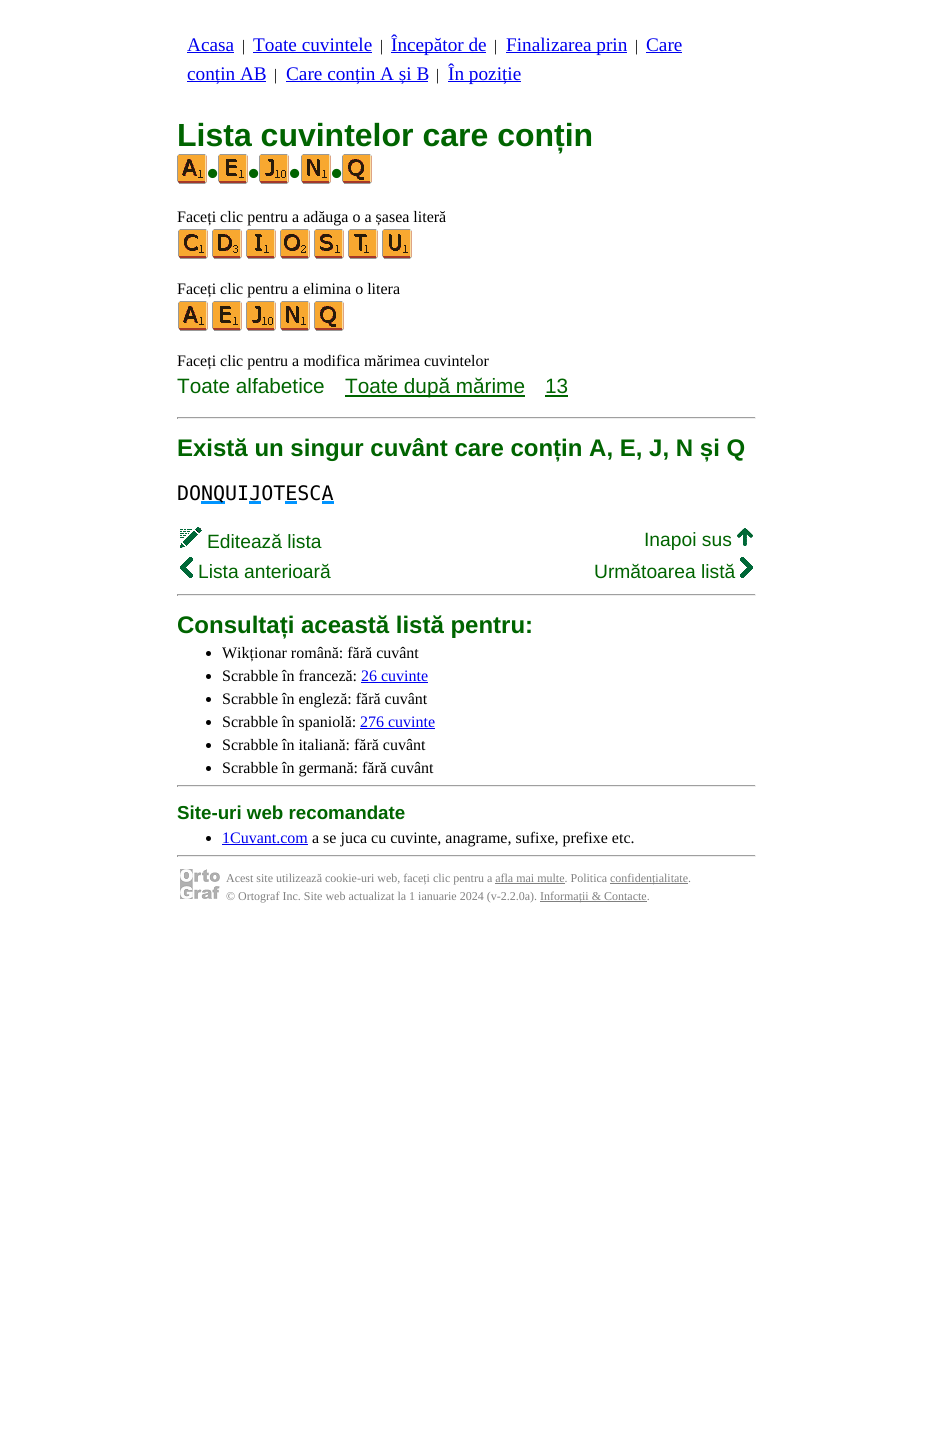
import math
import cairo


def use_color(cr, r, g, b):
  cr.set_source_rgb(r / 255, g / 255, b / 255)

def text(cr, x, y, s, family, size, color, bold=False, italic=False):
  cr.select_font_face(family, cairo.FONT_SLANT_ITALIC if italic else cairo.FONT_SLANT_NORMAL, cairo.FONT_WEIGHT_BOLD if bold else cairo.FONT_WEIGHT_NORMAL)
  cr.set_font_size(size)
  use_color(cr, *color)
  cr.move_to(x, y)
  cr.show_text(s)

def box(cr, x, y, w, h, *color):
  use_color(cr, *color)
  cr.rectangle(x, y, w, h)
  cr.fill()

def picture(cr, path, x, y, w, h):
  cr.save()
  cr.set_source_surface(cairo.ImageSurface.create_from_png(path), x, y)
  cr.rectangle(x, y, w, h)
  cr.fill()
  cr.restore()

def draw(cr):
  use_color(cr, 255, 255, 255)
  cr.paint()
  box(cr, 187, 52, 47, 1, 0, 0, 238)
  box(cr, 253, 52, 119, 1, 0, 0, 238)
  box(cr, 391, 52, 95, 1, 0, 0, 238)
  box(cr, 506, 52, 121, 1, 0, 0, 238)
  box(cr, 646, 52, 36, 1, 0, 0, 238)
  box(cr, 187, 81, 79, 1, 0, 0, 238)
  box(cr, 286, 81, 142, 1, 0, 0, 238)
  box(cr, 448, 81, 73, 1, 0, 0, 238)
  picture(cr, "img_01.png", 177, 154, 30, 30)
  picture(cr, "img_02.png", 218, 154, 30, 30)
  picture(cr, "img_03.png", 259, 154, 30, 30)
  picture(cr, "img_04.png", 301, 154, 30, 30)
  picture(cr, "img_05.png", 342, 154, 30, 30)
  picture(cr, "img_06.png", 178, 229, 30, 30)
  picture(cr, "img_07.png", 212, 229, 30, 30)
  picture(cr, "img_08.png", 246, 229, 30, 30)
  picture(cr, "img_09.png", 280, 229, 30, 30)
  picture(cr, "img_10.png", 314, 229, 30, 30)
  picture(cr, "img_11.png", 348, 229, 30, 30)
  picture(cr, "img_12.png", 382, 229, 30, 30)
  picture(cr, "img_01.png", 178, 301, 30, 30)
  picture(cr, "img_02.png", 212, 301, 30, 30)
  picture(cr, "img_03.png", 246, 301, 30, 30)
  picture(cr, "img_04.png", 280, 301, 30, 30)
  picture(cr, "img_05.png", 314, 301, 30, 30)
  box(cr, 345, 395, 180, 2, 0, 100, 0)
  box(cr, 545, 395, 23, 2, 0, 100, 0)
  box(cr, 177, 417, 579, 1, 159, 159, 159)
  box(cr, 755, 417, 1, 2, 238, 238, 238)
  box(cr, 177, 418, 579, 1, 238, 238, 238)
  box(cr, 177, 417, 1, 2, 159, 159, 159)
  box(cr, 201, 501, 24, 3, 0, 148, 255)
  picture(cr, "img_13.png", 180, 527, 22, 21)
  picture(cr, "img_14.png", 737, 528, 16, 18)
  picture(cr, "img_15.png", 180, 557, 13, 21)
  picture(cr, "img_16.png", 740, 557, 13, 21)
  box(cr, 177, 594, 579, 1, 159, 159, 159)
  box(cr, 755, 594, 1, 2, 238, 238, 238)
  box(cr, 177, 595, 579, 1, 238, 238, 238)
  box(cr, 177, 594, 1, 2, 159, 159, 159)
  use_color(cr, 0, 0, 0)
  cr.arc(208.5, 653.5, 2.5, 0, 2 * math.pi)
  cr.fill()
  cr.arc(208.5, 676.5, 2.5, 0, 2 * math.pi)
  cr.fill()
  box(cr, 361, 682, 67, 1, 0, 0, 238)
  use_color(cr, 0, 0, 0)
  cr.arc(208.5, 699.5, 2.5, 0, 2 * math.pi)
  cr.fill()
  cr.arc(208.5, 722.5, 2.5, 0, 2 * math.pi)
  cr.fill()
  box(cr, 360, 728, 75, 1, 0, 0, 238)
  use_color(cr, 0, 0, 0)
  cr.arc(208.5, 745.5, 2.5, 0, 2 * math.pi)
  cr.fill()
  cr.arc(208.5, 768.5, 2.5, 0, 2 * math.pi)
  cr.fill()
  box(cr, 177, 785, 579, 1, 159, 159, 159)
  box(cr, 755, 785, 1, 2, 238, 238, 238)
  box(cr, 177, 786, 579, 1, 238, 238, 238)
  box(cr, 177, 785, 1, 2, 159, 159, 159)
  use_color(cr, 0, 0, 0)
  cr.arc(208.5, 838.5, 2.5, 0, 2 * math.pi)
  cr.fill()
  box(cr, 222, 844, 86, 1, 0, 0, 238)
  box(cr, 177, 855, 579, 1, 159, 159, 159)
  box(cr, 755, 855, 1, 2, 238, 238, 238)
  box(cr, 177, 856, 579, 1, 238, 238, 238)
  box(cr, 177, 855, 1, 2, 159, 159, 159)
  picture(cr, "img_17.png", 180, 869, 40, 30)
  box(cr, 495, 883, 70, 1, 128, 128, 128)
  box(cr, 610, 883, 78, 1, 128, 128, 128)
  box(cr, 540, 901, 107, 1, 128, 128, 128)
  text(cr, 187, 51, "Acasa", "Liberation Serif", 19.25, (0, 0, 238))
  text(cr, 242, 51, "|", "Liberation Serif", 16, (0, 0, 0))
  text(cr, 253, 51, "Toate cuvintele", "Liberation Serif", 19.25, (0, 0, 238))
  text(cr, 380, 51, "|", "Liberation Serif", 16, (0, 0, 0))
  text(cr, 391, 51, "Începător de", "Liberation Serif", 19.25, (0, 0, 238))
  text(cr, 494, 51, "|", "Liberation Serif", 16, (0, 0, 0))
  text(cr, 506, 51, "Finalizarea prin", "Liberation Serif", 19.25, (0, 0, 238))
  text(cr, 635, 51, "|", "Liberation Serif", 16, (0, 0, 0))
  text(cr, 646, 51, "Care", "Liberation Serif", 19.25, (0, 0, 238))
  text(cr, 187, 80, "conțin AB", "Liberation Serif", 19.25, (0, 0, 238))
  text(cr, 274, 80, "|", "Liberation Serif", 16, (0, 0, 0))
  text(cr, 286, 80, "Care conțin A și B", "Liberation Serif", 19.25, (0, 0, 238))
  text(cr, 436, 80, "|", "Liberation Serif", 16, (0, 0, 0))
  text(cr, 448, 80, "În poziție", "Liberation Serif", 19.25, (0, 0, 238))
  text(cr, 177, 146, "Lista cuvintelor care conțin", "Liberation Sans", 32, (0, 100, 0), bold=True)
  text(cr, 207, 184, "•", "Liberation Sans", 32, (0, 100, 0), bold=True)
  text(cr, 248, 184, "•", "Liberation Sans", 32, (0, 100, 0), bold=True)
  text(cr, 289, 184, "•", "Liberation Sans", 32, (0, 100, 0), bold=True)
  text(cr, 331, 184, "•", "Liberation Sans", 32, (0, 100, 0), bold=True)
  text(cr, 177, 222, "Faceți clic pentru a adăuga o a șasea literă", "Liberation Serif", 16, (0, 0, 0))
  text(cr, 177, 294, "Faceți clic pentru a elimina o litera", "Liberation Serif", 16, (0, 0, 0))
  text(cr, 177, 366, "Faceți clic pentru a modifica mărimea cuvintelor", "Liberation Serif", 16, (0, 0, 0))
  text(cr, 177, 393, "Toate alfabetice", "Liberation Sans", 20.75, (0, 100, 0))
  text(cr, 345, 393, "Toate după mărime", "Liberation Sans", 20.75, (0, 100, 0))
  text(cr, 545, 393, "13", "Liberation Sans", 20.75, (0, 100, 0))
  text(cr, 177, 456, "Există un singur cuvânt care conțin A, E, J, N și Q", "Liberation Sans", 24, (0, 100, 0), bold=True)
  text(cr, 177, 500, "DO", "DejaVu Sans Mono", 20, (0, 0, 0))
  text(cr, 201, 500, "NQUIJOTESCA", "DejaVu Sans Mono", 20, (0, 0, 0))
  box(cr, 249, 501, 12, 3, 0, 148, 255)
  box(cr, 285, 501, 12, 3, 0, 148, 255)
  box(cr, 322, 501, 12, 3, 0, 148, 255)
  text(cr, 207, 548, "Editează lista", "Liberation Sans", 19.25, (0, 100, 0))
  text(cr, 644, 546, "Inapoi sus", "Liberation Sans", 19.25, (0, 100, 0))
  text(cr, 198, 578, "Lista anterioară", "Liberation Sans", 19.25, (0, 100, 0))
  text(cr, 594, 578, "Următoarea listă", "Liberation Sans", 19.25, (0, 100, 0))
  text(cr, 177, 633, "Consultați această listă pentru:", "Liberation Sans", 24, (0, 100, 0), bold=True)
  text(cr, 222, 658, "Wikționar română: fără cuvânt", "Liberation Serif", 16, (0, 0, 0))
  text(cr, 222, 681, "Scrabble în franceză:", "Liberation Serif", 16, (0, 0, 0))
  text(cr, 361, 681, "26 cuvinte", "Liberation Serif", 16, (0, 0, 238))
  text(cr, 222, 704, "Scrabble în engleză: fără cuvânt", "Liberation Serif", 16, (0, 0, 0))
  text(cr, 222, 727, "Scrabble în spaniolă:", "Liberation Serif", 16, (0, 0, 0))
  text(cr, 360, 727, "276 cuvinte", "Liberation Serif", 16, (0, 0, 238))
  text(cr, 222, 750, "Scrabble în italiană: fără cuvânt", "Liberation Serif", 16, (0, 0, 0))
  text(cr, 222, 773, "Scrabble în germană: fără cuvânt", "Liberation Serif", 16, (0, 0, 0))
  text(cr, 177, 819, "Site-uri web recomandate", "Liberation Sans", 18.75, (0, 100, 0), bold=True)
  text(cr, 222, 843, "1Cuvant.com", "Liberation Serif", 16, (0, 0, 238))
  text(cr, 312, 843, "a se juca cu cuvinte, anagrame, sufixe, prefixe etc.", "Liberation Serif", 16, (0, 0, 0))
  text(cr, 226, 882, "Acest site utilizează cookie-uri web, faceți clic pentru a afla mai multe. Politica", "Liberation Serif", 12, (128, 128, 128))
  text(cr, 610, 882, "confidențialitate.", "Liberation Serif", 12, (128, 128, 128))
  text(cr, 226, 900, "© Ortograf Inc. Site web actualizat la 1 ianuarie 2024 (v-2.2.0a).", "Liberation Serif", 12, (128, 128, 128))
  text(cr, 540, 900, "Informații & Contacte.", "Liberation Serif", 12, (128, 128, 128))


surface = cairo.ImageSurface(cairo.FORMAT_RGB24, 933, 1440)
cr = cairo.Context(surface)
options = cairo.FontOptions()
options.set_hint_metrics(cairo.HINT_METRICS_OFF)
options.set_hint_style(cairo.HINT_STYLE_NONE)
cr.set_font_options(options)
cr.set_miter_limit(4)
draw(cr)
surface.write_to_png("out.png")
